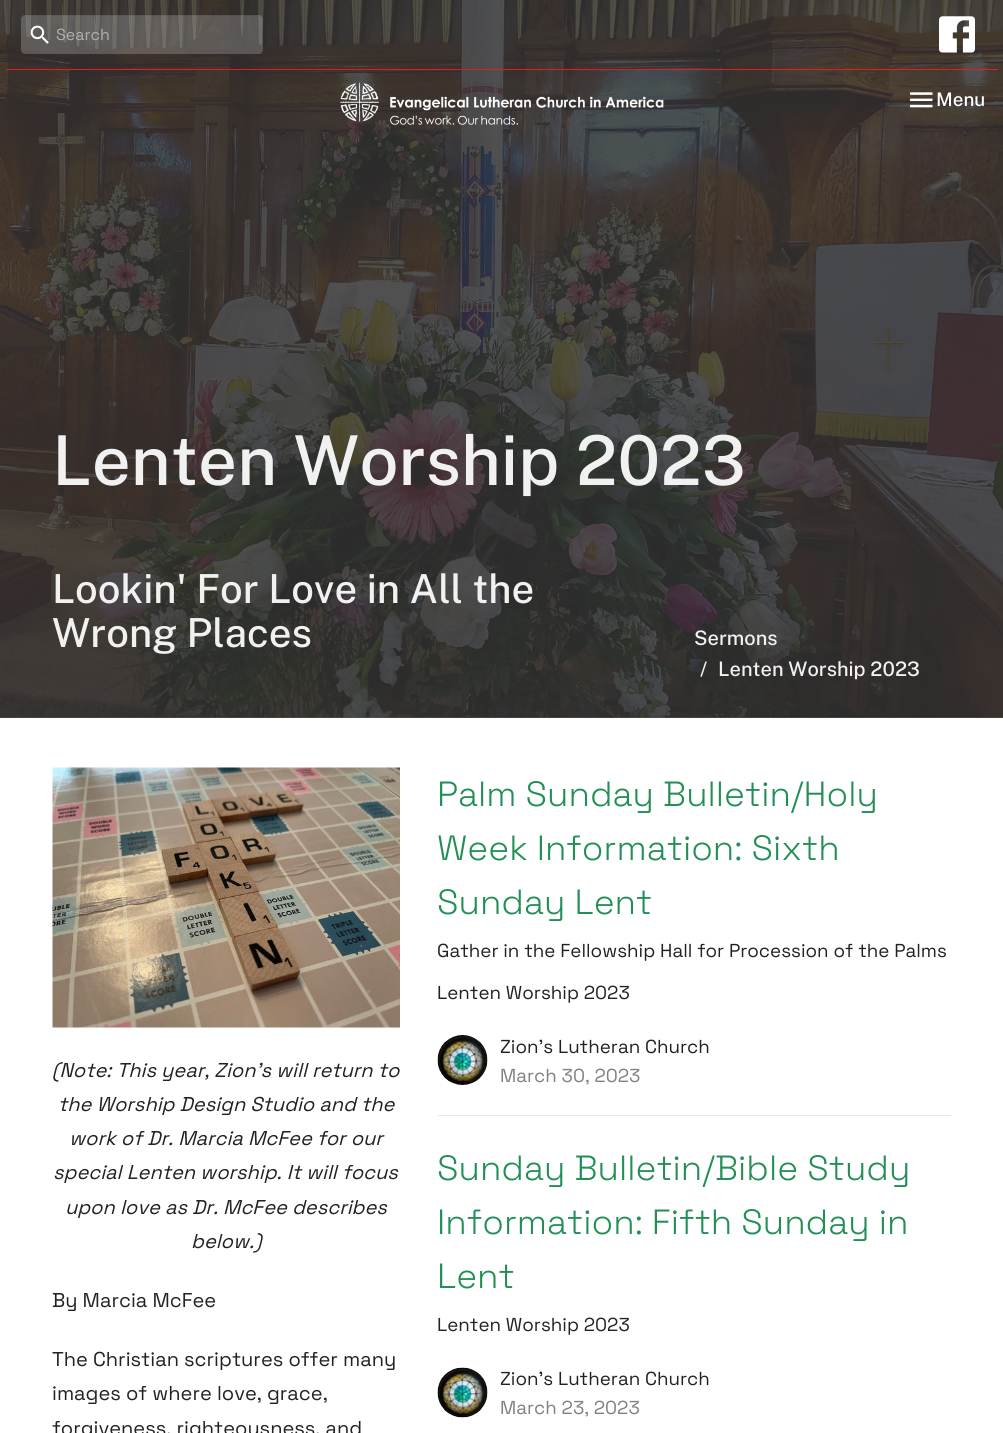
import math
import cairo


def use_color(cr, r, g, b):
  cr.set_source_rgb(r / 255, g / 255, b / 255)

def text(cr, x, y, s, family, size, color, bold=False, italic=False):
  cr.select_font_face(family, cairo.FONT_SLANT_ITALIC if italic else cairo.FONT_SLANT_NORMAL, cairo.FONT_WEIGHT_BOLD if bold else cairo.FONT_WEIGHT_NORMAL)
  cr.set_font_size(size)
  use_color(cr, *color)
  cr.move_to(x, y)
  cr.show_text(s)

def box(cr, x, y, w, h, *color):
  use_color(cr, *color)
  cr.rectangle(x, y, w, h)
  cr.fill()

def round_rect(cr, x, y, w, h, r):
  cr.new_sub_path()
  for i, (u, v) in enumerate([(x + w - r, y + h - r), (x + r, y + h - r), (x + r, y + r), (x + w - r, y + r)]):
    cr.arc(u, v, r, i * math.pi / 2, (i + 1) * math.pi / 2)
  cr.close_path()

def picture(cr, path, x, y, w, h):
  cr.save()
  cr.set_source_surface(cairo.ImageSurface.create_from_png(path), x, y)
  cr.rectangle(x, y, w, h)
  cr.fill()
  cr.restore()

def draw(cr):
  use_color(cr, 255, 255, 255)
  cr.paint()
  box(cr, 0, 717, 1003, 1, 82, 82, 82)
  picture(cr, "img_05.png", 0, 0, 1003, 718)
  box(cr, 6, 69, 992, 1, 227, 27, 35)
  cr.set_source_rgba(1, 1, 1, 0.2)
  round_rect(cr, 21, 15, 242, 39, 4)
  cr.fill()
  cr.set_source_rgba(0, 0, 0, 0.07)
  cr.new_path()
  cr.move_to(25, 16)
  cr.line_to(259, 16)
  cr.curve_to(264, 16, 262, 28, 262, 30)
  cr.line_to(262, 53)
  cr.curve_to(262, 52, 263, 51, 263, 50)
  cr.line_to(263, 19)
  cr.curve_to(263, 17, 261, 15, 259, 15)
  cr.line_to(25, 15)
  cr.curve_to(23, 15, 21, 17, 21, 19)
  cr.line_to(21, 20)
  cr.curve_to(21, 18, 23, 16, 25, 16)
  cr.close_path()
  cr.fill()
  picture(cr, "img_01.png", 30, 25, 19, 19)
  picture(cr, "img_02.png", 939, 16, 36, 37)
  picture(cr, "img_03.png", 340, 82, 324, 43)
  picture(cr, "img_04.png", 910, 92, 23, 16)
  picture(cr, "img_06.png", 52, 767, 348, 261)
  box(cr, 438, 1115, 513, 1, 230, 230, 230)
  picture(cr, "img_07.png", 437, 1035, 51, 50)
  picture(cr, "img_08.png", 437, 1367, 51, 51)
  text(cr, 56, 40, "Search", "Space Grotesk", 16, (178, 176, 175))
  text(cr, 936, 106, "Menu", "Public Sans Medium", 18.75, (255, 255, 255))
  text(cr, 52, 485, "Lenten Worship 2023", "Public Sans Medium", 68.75, (241, 241, 241))
  text(cr, 52, 603, "Lookin' For Love in All the", "Public Sans Medium", 40, (241, 241, 241))
  text(cr, 52, 647, "Wrong Places", "Public Sans Medium", 40, (241, 241, 241))
  text(cr, 694, 645, "Sermons", "Public Sans Medium", 20, (241, 241, 241))
  text(cr, 700, 676, "/", "Public Sans Medium", 20, (241, 241, 241))
  text(cr, 718, 676, "Lenten Worship 2023", "Public Sans Medium", 20, (241, 241, 241))
  text(cr, 52, 1077, "(Note: This year, Zion’s will return to", "Space Grotesk", 20, (34, 34, 34), italic=True)
  text(cr, 58, 1111, "the Worship Design Studio and the", "Space Grotesk", 20, (34, 34, 34), italic=True)
  text(cr, 69, 1145, "work of Dr. Marcia McFee for our", "Space Grotesk", 20, (34, 34, 34), italic=True)
  text(cr, 53, 1179, "special Lenten worship. It will focus", "Space Grotesk", 20, (34, 34, 34), italic=True)
  text(cr, 65, 1214, "upon love as Dr. McFee describes", "Space Grotesk", 20, (34, 34, 34), italic=True)
  text(cr, 191, 1248, "below.)", "Space Grotesk", 20, (34, 34, 34), italic=True)
  text(cr, 52, 1307, "By Marcia McFee", "Space Grotesk", 20, (34, 34, 34))
  text(cr, 52, 1366, "The Christian scriptures offer many", "Space Grotesk", 20, (34, 34, 34))
  text(cr, 52, 1400, "images of where love, grace,", "Space Grotesk", 20, (34, 34, 34))
  text(cr, 52, 1435, "forgiveness, righteousness, and", "Space Grotesk", 20, (34, 34, 34))
  text(cr, 437, 806, "Palm Sunday Bulletin/Holy", "Space Grotesk Light", 35, (35, 143, 86))
  text(cr, 437, 860, "Week Information: Sixth", "Space Grotesk Light", 35, (35, 143, 86))
  text(cr, 437, 914, "Sunday Lent", "Space Grotesk Light", 35, (35, 143, 86))
  text(cr, 437, 957, "Gather in the Fellowship Hall for Procession of the Palms", "Space Grotesk", 18.75, (34, 34, 34))
  text(cr, 437, 999, "Lenten Worship 2023", "Space Grotesk", 18.75, (34, 34, 34))
  text(cr, 500, 1053, "Zion's Lutheran Church", "Space Grotesk", 18.75, (34, 34, 34))
  text(cr, 500, 1082, "March 30, 2023", "Space Grotesk", 18.75, (128, 128, 128))
  text(cr, 437, 1180, "Sunday Bulletin/Bible Study", "Space Grotesk Light", 35, (35, 143, 86))
  text(cr, 437, 1234, "Information: Fifth Sunday in", "Space Grotesk Light", 35, (35, 143, 86))
  text(cr, 437, 1288, "Lent", "Space Grotesk Light", 35, (35, 143, 86))
  text(cr, 437, 1331, "Lenten Worship 2023", "Space Grotesk", 18.75, (34, 34, 34))
  text(cr, 500, 1385, "Zion's Lutheran Church", "Space Grotesk", 18.75, (34, 34, 34))
  text(cr, 500, 1414, "March 23, 2023", "Space Grotesk", 18.75, (128, 128, 128))


surface = cairo.ImageSurface(cairo.FORMAT_RGB24, 1003, 1433)
cr = cairo.Context(surface)
options = cairo.FontOptions()
options.set_hint_metrics(cairo.HINT_METRICS_OFF)
options.set_hint_style(cairo.HINT_STYLE_NONE)
cr.set_font_options(options)
cr.set_miter_limit(4)
draw(cr)
surface.write_to_png("out.png")
